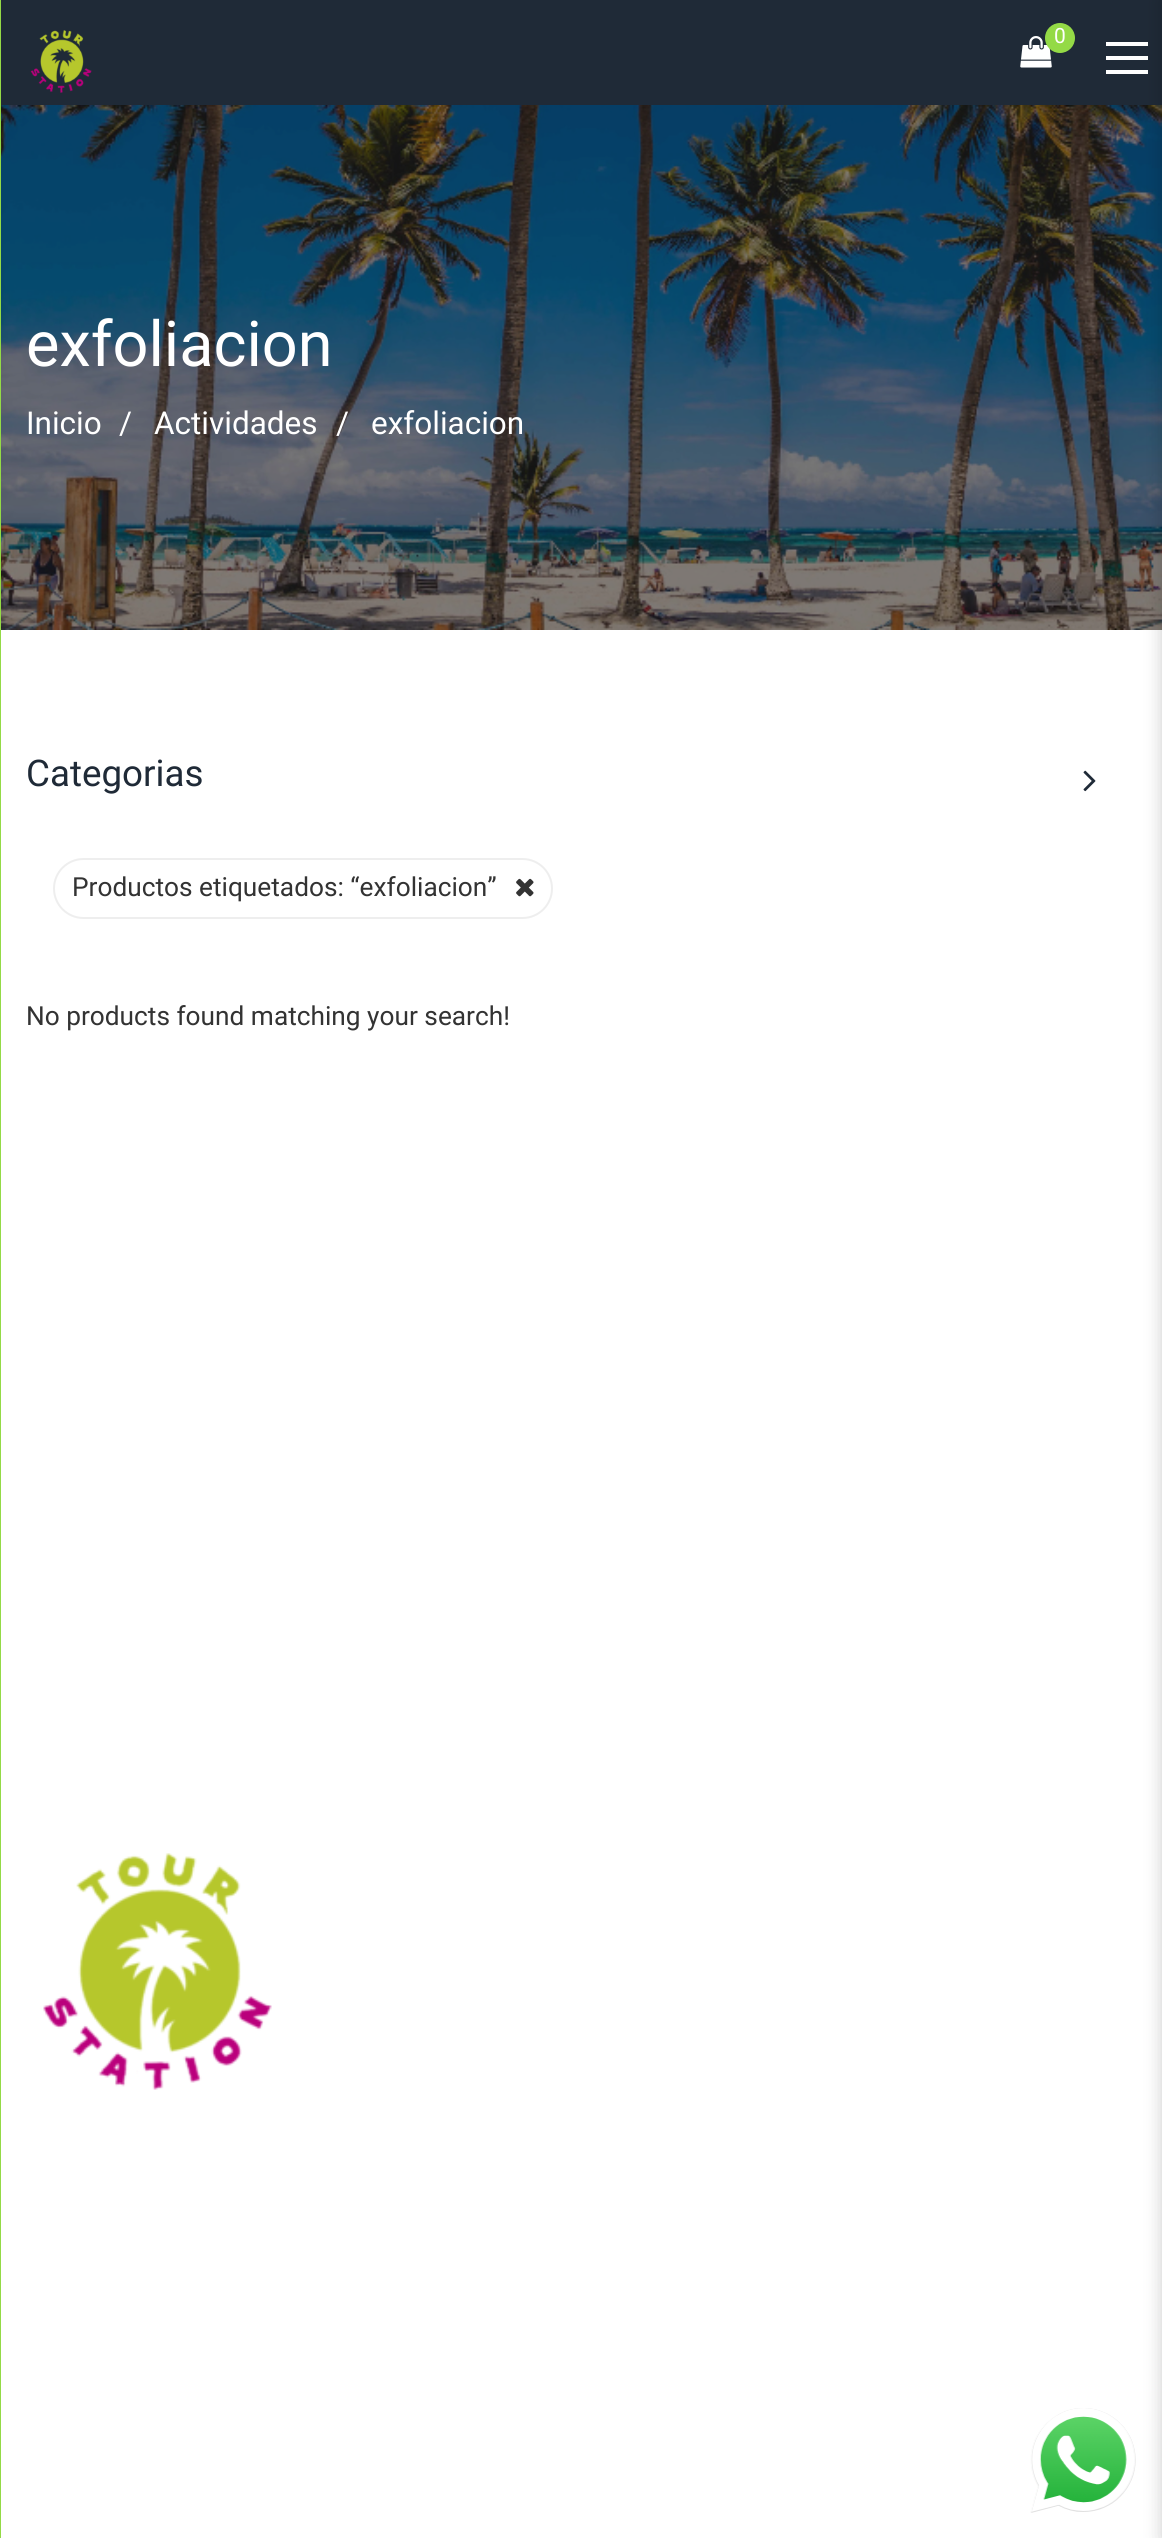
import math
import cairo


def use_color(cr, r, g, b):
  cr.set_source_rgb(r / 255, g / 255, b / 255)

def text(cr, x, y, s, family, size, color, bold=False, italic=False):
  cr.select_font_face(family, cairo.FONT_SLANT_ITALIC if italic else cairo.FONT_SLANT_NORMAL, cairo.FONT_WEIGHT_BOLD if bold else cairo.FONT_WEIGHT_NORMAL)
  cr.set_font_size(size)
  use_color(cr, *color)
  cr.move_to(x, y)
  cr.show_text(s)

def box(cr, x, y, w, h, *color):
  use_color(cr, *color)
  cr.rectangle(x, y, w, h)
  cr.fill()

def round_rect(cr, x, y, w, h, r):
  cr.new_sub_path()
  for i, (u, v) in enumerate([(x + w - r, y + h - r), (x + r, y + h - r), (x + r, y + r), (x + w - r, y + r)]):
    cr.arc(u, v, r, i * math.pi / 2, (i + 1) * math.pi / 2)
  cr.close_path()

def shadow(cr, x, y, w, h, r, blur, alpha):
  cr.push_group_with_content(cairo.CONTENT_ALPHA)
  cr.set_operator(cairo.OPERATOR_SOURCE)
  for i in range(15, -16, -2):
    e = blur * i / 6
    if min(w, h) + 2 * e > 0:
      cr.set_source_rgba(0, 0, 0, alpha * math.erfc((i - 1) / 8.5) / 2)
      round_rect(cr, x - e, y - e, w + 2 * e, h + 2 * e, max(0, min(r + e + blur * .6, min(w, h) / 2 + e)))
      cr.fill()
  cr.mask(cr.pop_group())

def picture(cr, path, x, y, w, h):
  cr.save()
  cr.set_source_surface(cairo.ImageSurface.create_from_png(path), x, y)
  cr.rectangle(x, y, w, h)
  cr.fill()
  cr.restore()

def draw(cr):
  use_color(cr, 255, 255, 255)
  cr.paint()
  box(cr, 1, 0, 1161, 105, 31, 42, 55)
  box(cr, 0, 0, 1, 2538, 148, 218, 70)
  picture(cr, "img_01.png", 30, 30, 62, 63)
  picture(cr, "img_02.png", 1020, 36, 32, 32)
  cr.arc(1060, 38, 15, 0, 2 * math.pi)
  cr.fill()
  box(cr, 1106, 42, 42, 4, 255, 255, 255)
  box(cr, 1106, 56, 42, 4, 255, 255, 255)
  box(cr, 1106, 70, 42, 4, 255, 255, 255)
  picture(cr, "img_03.png", 1, 105, 1161, 525)
  picture(cr, "img_04.png", 1083, 770, 13, 22)
  round_rect(cr, 54, 859, 498, 59, 29.5)
  use_color(cr, 238, 238, 238)
  cr.stroke()
  picture(cr, "img_05.png", 516, 878, 18, 19)
  picture(cr, "img_06.png", 43, 1853, 229, 237)
  use_color(cr, 0, 0, 0)
  shadow(cr, 1162, 0, 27, 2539, 0, 9, 0.2)
  picture(cr, "img_07.png", 1030, 2408, 106, 105)
  text(cr, 1054, 43, "0", "Roboto", 21, (255, 255, 255))
  text(cr, 26, 366, "exfoliacion", "Roboto", 63, (255, 255, 255))
  text(cr, 26, 434, "Inicio", "Roboto", 31.5, (255, 255, 255))
  text(cr, 119, 434, "/", "Roboto", 31.5, (255, 255, 255))
  text(cr, 154, 434, "Actividades", "Roboto", 31.5, (255, 255, 255))
  text(cr, 336, 434, "/", "Roboto", 31.5, (255, 255, 255))
  text(cr, 371, 434, "exfoliacion", "Roboto", 31.5, (255, 255, 255))
  text(cr, 26, 786, "Categorias", "Roboto", 36.75, (31, 42, 55))
  text(cr, 72, 896, "Productos etiquetados: “exfoliacion”", "Roboto", 26.25, (51, 51, 51))
  text(cr, 26, 1025, "No products found matching your search!", "Roboto", 26.25, (51, 51, 51))


surface = cairo.ImageSurface(cairo.FORMAT_RGB24, 1162, 2538)
cr = cairo.Context(surface)
options = cairo.FontOptions()
options.set_hint_metrics(cairo.HINT_METRICS_OFF)
options.set_hint_style(cairo.HINT_STYLE_NONE)
cr.set_font_options(options)
cr.set_miter_limit(4)
draw(cr)
surface.write_to_png("out.png")
